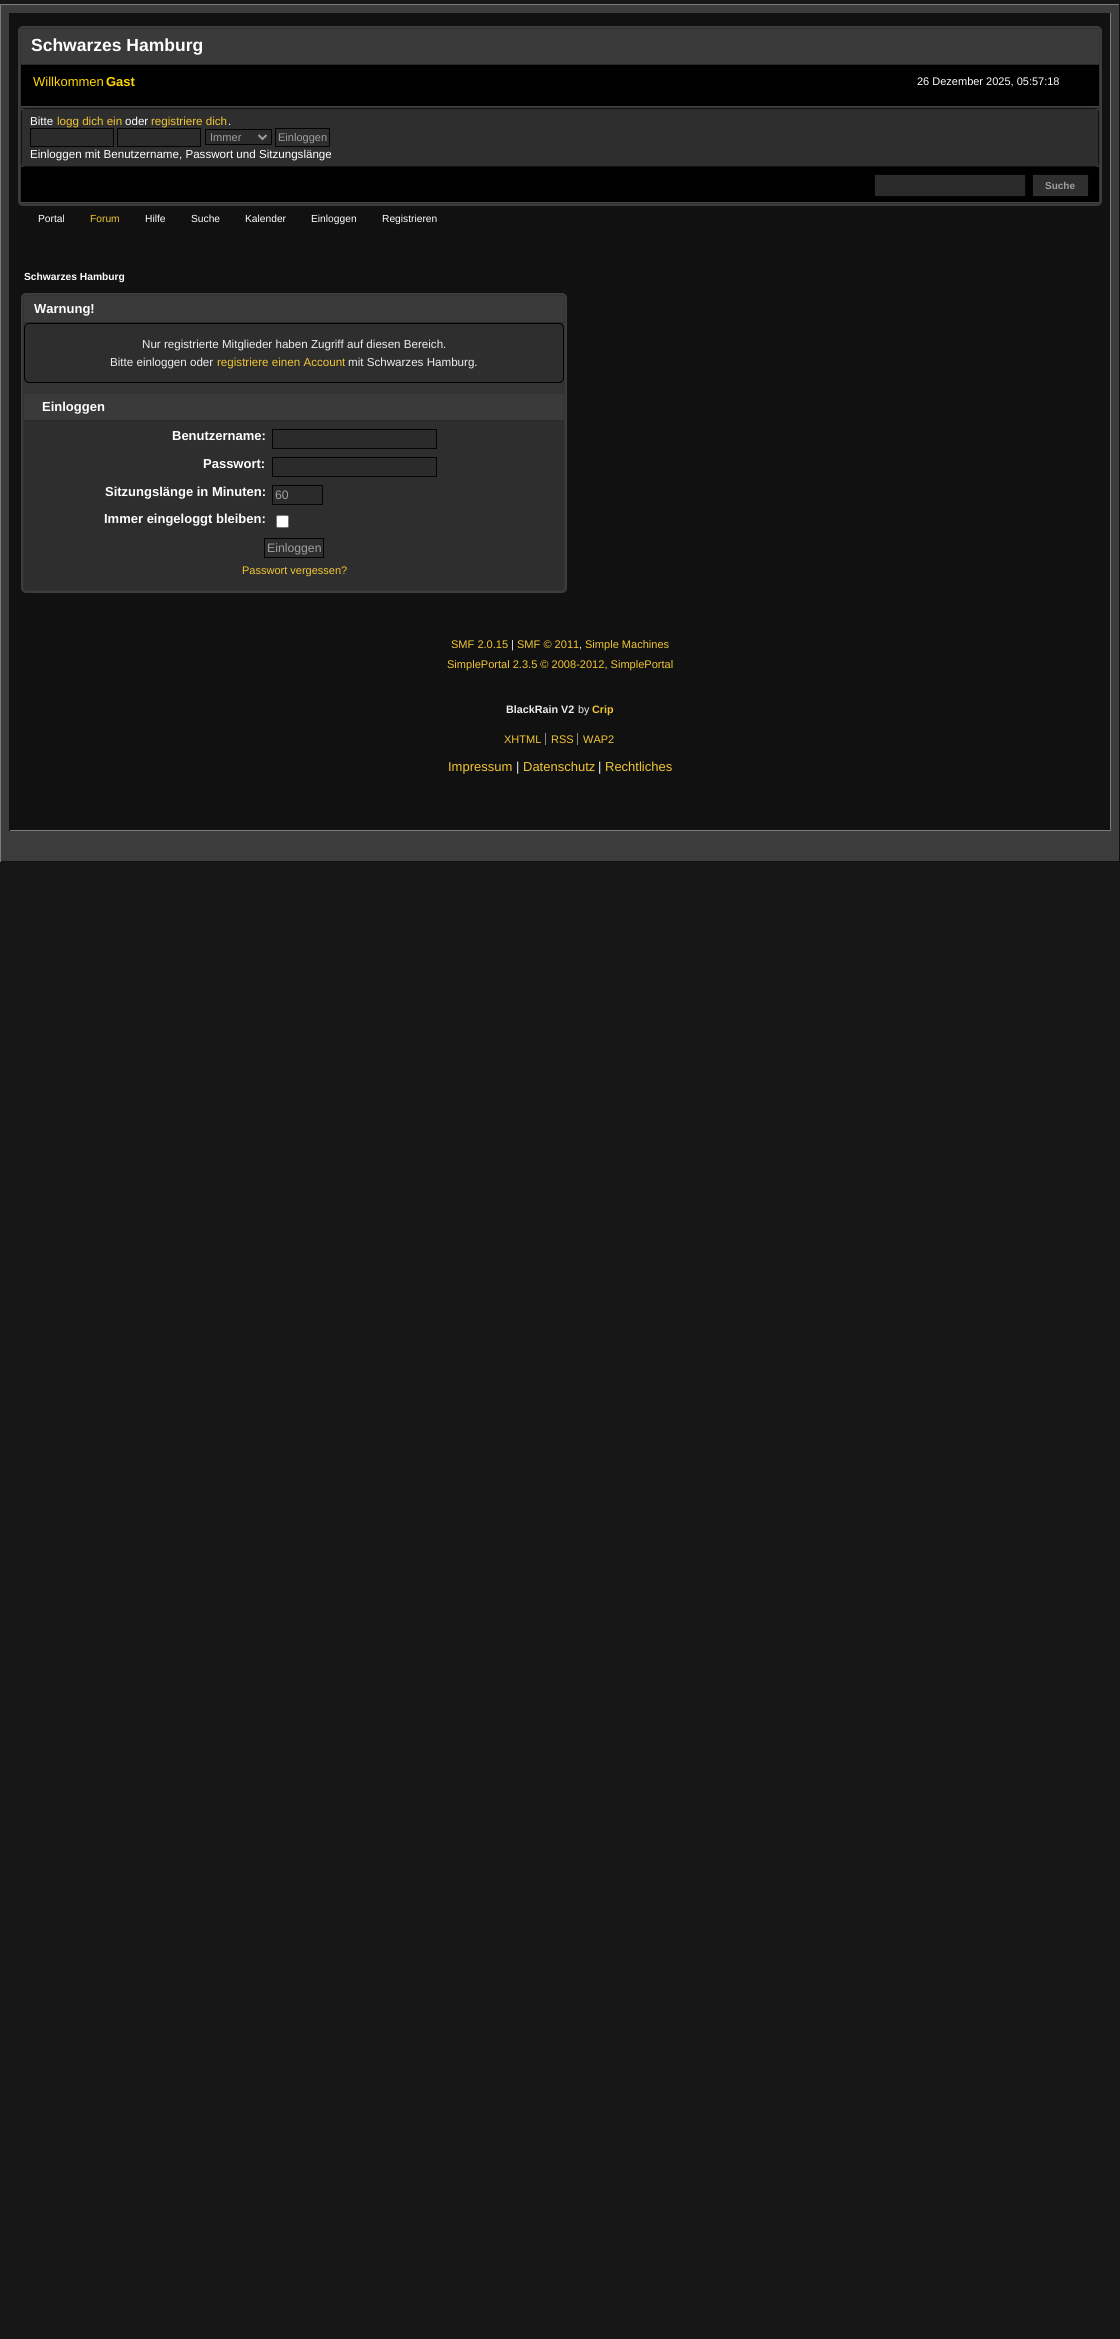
import math
import cairo


def use_color(cr, r, g, b):
  cr.set_source_rgb(r / 255, g / 255, b / 255)

def text(cr, x, y, s, family, size, color, bold=False, italic=False):
  cr.select_font_face(family, cairo.FONT_SLANT_ITALIC if italic else cairo.FONT_SLANT_NORMAL, cairo.FONT_WEIGHT_BOLD if bold else cairo.FONT_WEIGHT_NORMAL)
  cr.set_font_size(size)
  use_color(cr, *color)
  cr.move_to(x, y)
  cr.show_text(s)

def box(cr, x, y, w, h, *color):
  use_color(cr, *color)
  cr.rectangle(x, y, w, h)
  cr.fill()

def round_rect(cr, x, y, w, h, r):
  cr.new_sub_path()
  for i, (u, v) in enumerate([(x + w - r, y + h - r), (x + r, y + h - r), (x + r, y + r), (x + w - r, y + r)]):
    cr.arc(u, v, r, i * math.pi / 2, (i + 1) * math.pi / 2)
  cr.close_path()

def draw(cr):
  use_color(cr, 23, 23, 23)
  cr.paint()
  box(cr, 1, 5, 1118, 856, 60, 60, 60)
  box(cr, 0, 4, 1120, 1, 124, 124, 124)
  box(cr, 1119, 4, 1, 858, 17, 17, 17)
  box(cr, 0, 861, 1120, 1, 17, 17, 17)
  box(cr, 0, 4, 1, 858, 124, 124, 124)
  box(cr, 10, 13, 1100, 817, 17, 17, 17)
  box(cr, 1110, 13, 1, 818, 124, 124, 124)
  box(cr, 9, 830, 1102, 1, 124, 124, 124)
  box(cr, 9, 13, 1, 818, 17, 17, 17)
  use_color(cr, 51, 51, 51)
  round_rect(cr, 19, 27, 1082, 178, 4)
  cr.fill_preserve()
  use_color(cr, 60, 60, 60)
  cr.stroke()
  box(cr, 21, 29, 1078, 35, 58, 58, 58)
  box(cr, 21, 64, 1078, 1, 42, 42, 42)
  box(cr, 21, 65, 1078, 41, 0, 0, 0)
  box(cr, 21, 106, 1078, 1, 67, 67, 67)
  use_color(cr, 17, 17, 17)
  round_rect(cr, 21, 108, 1078, 59, 5)
  cr.fill()
  box(cr, 22, 109, 1076, 57, 46, 46, 46)
  use_color(cr, 43, 43, 43)
  cr.rectangle(30.5, 128.5, 83, 18)
  cr.fill_preserve()
  use_color(cr, 4, 4, 4)
  cr.set_line_width(1)
  cr.stroke()
  use_color(cr, 43, 43, 43)
  cr.rectangle(117.5, 128.5, 83, 18)
  cr.fill_preserve()
  use_color(cr, 4, 4, 4)
  cr.stroke()
  use_color(cr, 43, 43, 43)
  cr.rectangle(205.5, 129.5, 66, 15)
  cr.fill_preserve()
  use_color(cr, 4, 4, 4)
  cr.stroke()
  cr.new_path()
  cr.move_to(258.5, 135)
  cr.line_to(262.5, 139)
  cr.line_to(266.5, 135)
  use_color(cr, 159, 159, 159)
  cr.set_line_width(2)
  cr.stroke()
  cr.rectangle(275.5, 128.5, 54, 18)
  use_color(cr, 4, 4, 4)
  cr.set_line_width(1)
  cr.stroke()
  box(cr, 21, 167, 1078, 35, 0, 0, 0)
  box(cr, 21, 202, 1078, 1, 67, 67, 67)
  use_color(cr, 43, 43, 43)
  cr.rectangle(874.5, 174.5, 151, 22)
  cr.fill_preserve()
  use_color(cr, 4, 4, 4)
  cr.stroke()
  use_color(cr, 47, 47, 47)
  cr.rectangle(1032.5, 174.5, 56, 22)
  cr.fill_preserve()
  use_color(cr, 4, 4, 4)
  cr.stroke()
  use_color(cr, 51, 51, 51)
  round_rect(cr, 22, 294, 544, 298, 4)
  cr.fill_preserve()
  use_color(cr, 60, 60, 60)
  cr.set_line_width(2)
  cr.stroke()
  box(cr, 24, 296, 540, 26, 58, 58, 58)
  box(cr, 24, 322, 540, 1, 42, 42, 42)
  use_color(cr, 46, 46, 46)
  round_rect(cr, 24.5, 323.5, 539, 59, 4.5)
  cr.fill_preserve()
  use_color(cr, 0, 0, 0)
  cr.set_line_width(1)
  cr.stroke()
  box(cr, 24, 394, 540, 26, 58, 58, 58)
  box(cr, 24, 420, 540, 1, 42, 42, 42)
  box(cr, 24, 421, 540, 169, 46, 46, 46)
  use_color(cr, 43, 43, 43)
  cr.rectangle(272.5, 429.5, 164, 19)
  cr.fill_preserve()
  use_color(cr, 4, 4, 4)
  cr.stroke()
  use_color(cr, 43, 43, 43)
  cr.rectangle(272.5, 457.5, 164, 19)
  cr.fill_preserve()
  use_color(cr, 4, 4, 4)
  cr.stroke()
  use_color(cr, 43, 43, 43)
  cr.rectangle(272.5, 485.5, 50, 19)
  cr.fill_preserve()
  use_color(cr, 4, 4, 4)
  cr.stroke()
  use_color(cr, 255, 255, 255)
  round_rect(cr, 276.5, 515.5, 12, 12, 1.5)
  cr.fill_preserve()
  use_color(cr, 118, 118, 118)
  cr.stroke()
  cr.rectangle(264.5, 538.5, 59, 19)
  use_color(cr, 4, 4, 4)
  cr.stroke()
  box(cr, 545, 733, 1, 12, 136, 136, 136)
  box(cr, 577, 733, 1, 12, 136, 136, 136)
  text(cr, 31, 51, "Schwarzes Hamburg", "Liberation Sans", 17.5, (255, 255, 255), bold=True)
  text(cr, 33, 86, "Willkommen", "Liberation Sans", 13, (255, 215, 0))
  text(cr, 106, 86, "Gast", "Liberation Sans", 13, (255, 215, 0), bold=True)
  text(cr, 917, 85, "26 Dezember 2025, 05:57:18", "Liberation Sans", 11, (255, 255, 255))
  text(cr, 30, 125, "Bitte", "Liberation Sans", 11.6, (255, 255, 255))
  text(cr, 57, 125, "logg dich ein", "Liberation Sans", 11.6, (241, 197, 52))
  text(cr, 125, 125, "oder", "Liberation Sans", 11.6, (255, 255, 255))
  text(cr, 151, 125, "registriere dich", "Liberation Sans", 11.6, (241, 197, 52))
  text(cr, 228, 125, ".", "Liberation Sans", 11.6, (255, 255, 255))
  text(cr, 210, 141, "Immer", "Liberation Sans", 11.05, (159, 159, 159))
  text(cr, 278, 141, "Einloggen", "Liberation Sans", 11.05, (159, 159, 159))
  text(cr, 30, 158, "Einloggen mit Benutzername, Passwort und Sitzungslänge", "Liberation Sans", 11.6, (255, 255, 255))
  text(cr, 1045, 189, "Suche", "Liberation Sans", 10, (159, 159, 159), bold=True)
  text(cr, 38, 222, "Portal", "Liberation Sans", 10.25, (255, 255, 255))
  text(cr, 90, 222, "Forum", "Liberation Sans", 10.25, (241, 197, 52))
  text(cr, 145, 222, "Hilfe", "Liberation Sans", 10.25, (255, 255, 255))
  text(cr, 191, 222, "Suche", "Liberation Sans", 10.25, (255, 255, 255))
  text(cr, 245, 222, "Kalender", "Liberation Sans", 10.25, (255, 255, 255))
  text(cr, 311, 222, "Einloggen", "Liberation Sans", 10.25, (255, 255, 255))
  text(cr, 382, 222, "Registrieren", "Liberation Sans", 10.25, (255, 255, 255))
  text(cr, 24, 280, "Schwarzes Hamburg", "Liberation Sans", 10.25, (255, 255, 255), bold=True)
  text(cr, 34, 313, "Warnung!", "Liberation Sans", 13, (255, 255, 255), bold=True)
  text(cr, 142, 348, "Nur registrierte Mitglieder haben Zugriff auf diesen Bereich.", "Liberation Sans", 11.6, (238, 238, 238))
  text(cr, 110, 366, "Bitte einloggen oder", "Liberation Sans", 11.6, (238, 238, 238))
  text(cr, 217, 366, "registriere einen Account", "Liberation Sans", 11.6, (241, 197, 52))
  text(cr, 348, 366, "mit Schwarzes Hamburg.", "Liberation Sans", 11.6, (238, 238, 238))
  text(cr, 42, 411, "Einloggen", "Liberation Sans", 13, (255, 255, 255), bold=True)
  text(cr, 172, 440, "Benutzername:", "Liberation Sans", 13, (255, 255, 255), bold=True)
  text(cr, 203, 468, "Passwort:", "Liberation Sans", 13, (255, 255, 255), bold=True)
  text(cr, 105, 496, "Sitzungslänge in Minuten:", "Liberation Sans", 13, (255, 255, 255), bold=True)
  text(cr, 275, 499, "60", "Liberation Sans", 12.25, (159, 159, 159))
  text(cr, 104, 523, "Immer eingeloggt bleiben:", "Liberation Sans", 13, (255, 255, 255), bold=True)
  text(cr, 267, 552, "Einloggen", "Liberation Sans", 12.25, (159, 159, 159))
  text(cr, 242, 574, "Passwort vergessen?", "Liberation Sans", 11, (241, 197, 52))
  text(cr, 451, 648, "SMF 2.0.15", "Liberation Sans", 11.05, (241, 197, 52))
  text(cr, 511, 648, "|", "Liberation Sans", 11.05, (238, 238, 238))
  text(cr, 517, 648, "SMF © 2011", "Liberation Sans", 11.05, (241, 197, 52))
  text(cr, 579, 648, ",", "Liberation Sans", 11.05, (238, 238, 238))
  text(cr, 585, 648, "Simple Machines", "Liberation Sans", 11.05, (241, 197, 52))
  text(cr, 447, 668, "SimplePortal 2.3.5 © 2008-2012, SimplePortal", "Liberation Sans", 11.05, (241, 197, 52))
  text(cr, 506, 713, "BlackRain V2", "Liberation Sans", 10.75, (238, 238, 238), bold=True)
  text(cr, 578, 713, "by", "Liberation Sans", 10.75, (238, 238, 238))
  text(cr, 592, 713, "Crip", "Liberation Sans", 10.75, (241, 197, 52), bold=True)
  text(cr, 504, 743, "XHTML", "Liberation Sans", 11, (241, 197, 52))
  text(cr, 551, 743, "RSS", "Liberation Sans", 11, (241, 197, 52))
  text(cr, 583, 743, "WAP2", "Liberation Sans", 11, (241, 197, 52))
  text(cr, 448, 771, "Impressum", "Liberation Sans", 13, (241, 197, 52))
  text(cr, 516, 771, "|", "Liberation Sans", 13, (238, 238, 238))
  text(cr, 523, 771, "Datenschutz", "Liberation Sans", 13, (241, 197, 52))
  text(cr, 598, 771, "|", "Liberation Sans", 13, (238, 238, 238))
  text(cr, 605, 771, "Rechtliches", "Liberation Sans", 13, (241, 197, 52))


surface = cairo.ImageSurface(cairo.FORMAT_RGB24, 1120, 2339)
cr = cairo.Context(surface)
options = cairo.FontOptions()
options.set_hint_metrics(cairo.HINT_METRICS_OFF)
options.set_hint_style(cairo.HINT_STYLE_NONE)
cr.set_font_options(options)
cr.set_miter_limit(4)
draw(cr)
surface.write_to_png("out.png")
